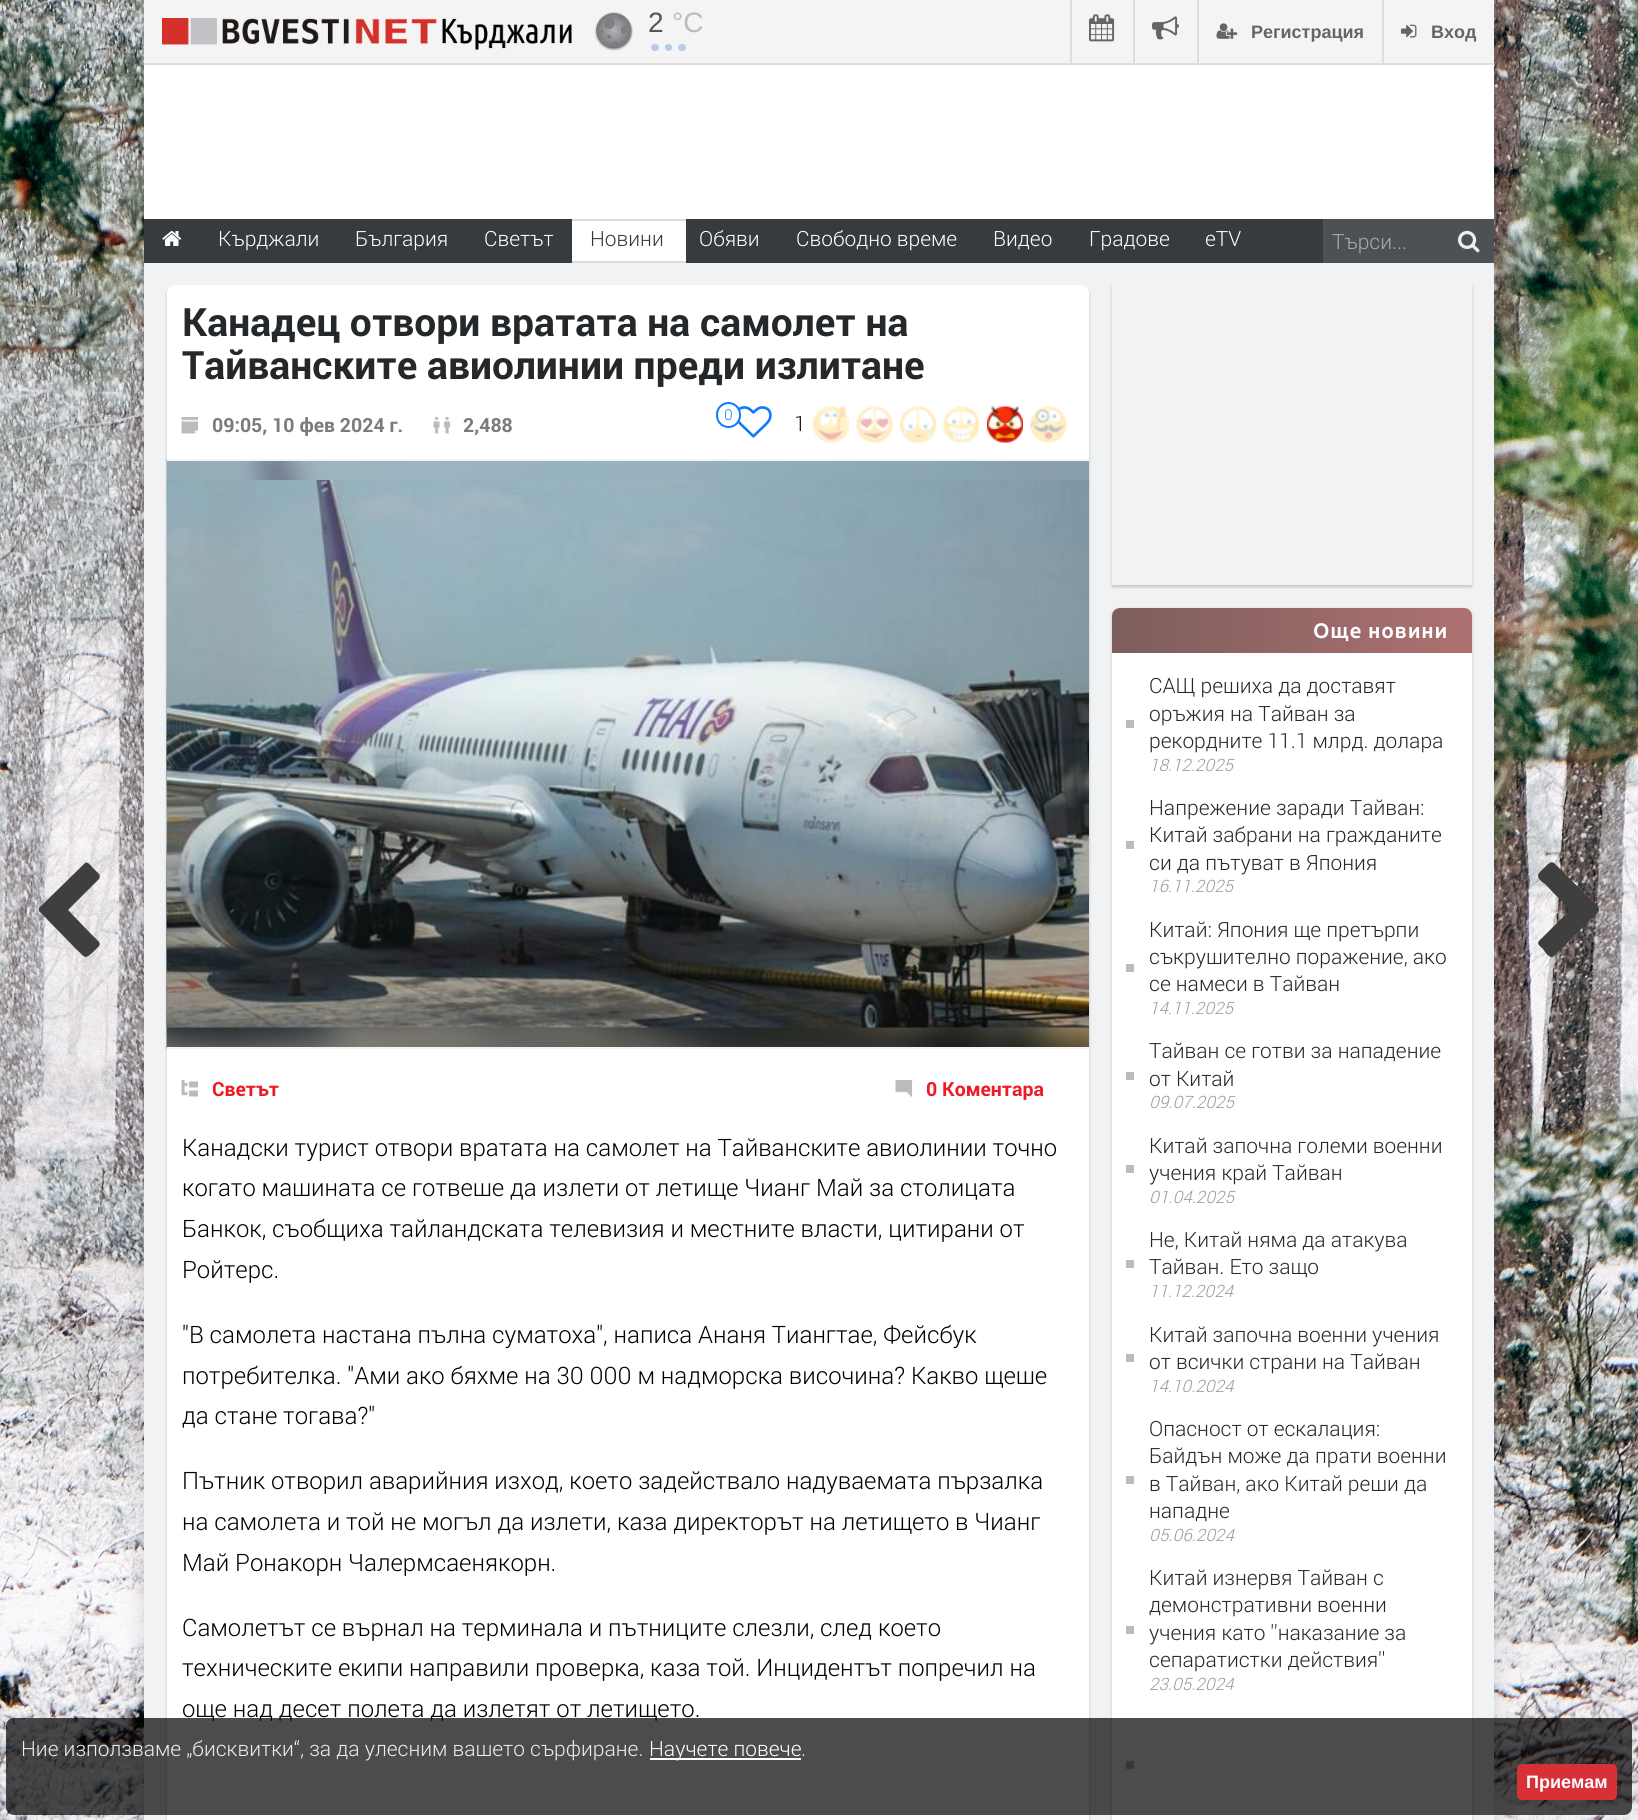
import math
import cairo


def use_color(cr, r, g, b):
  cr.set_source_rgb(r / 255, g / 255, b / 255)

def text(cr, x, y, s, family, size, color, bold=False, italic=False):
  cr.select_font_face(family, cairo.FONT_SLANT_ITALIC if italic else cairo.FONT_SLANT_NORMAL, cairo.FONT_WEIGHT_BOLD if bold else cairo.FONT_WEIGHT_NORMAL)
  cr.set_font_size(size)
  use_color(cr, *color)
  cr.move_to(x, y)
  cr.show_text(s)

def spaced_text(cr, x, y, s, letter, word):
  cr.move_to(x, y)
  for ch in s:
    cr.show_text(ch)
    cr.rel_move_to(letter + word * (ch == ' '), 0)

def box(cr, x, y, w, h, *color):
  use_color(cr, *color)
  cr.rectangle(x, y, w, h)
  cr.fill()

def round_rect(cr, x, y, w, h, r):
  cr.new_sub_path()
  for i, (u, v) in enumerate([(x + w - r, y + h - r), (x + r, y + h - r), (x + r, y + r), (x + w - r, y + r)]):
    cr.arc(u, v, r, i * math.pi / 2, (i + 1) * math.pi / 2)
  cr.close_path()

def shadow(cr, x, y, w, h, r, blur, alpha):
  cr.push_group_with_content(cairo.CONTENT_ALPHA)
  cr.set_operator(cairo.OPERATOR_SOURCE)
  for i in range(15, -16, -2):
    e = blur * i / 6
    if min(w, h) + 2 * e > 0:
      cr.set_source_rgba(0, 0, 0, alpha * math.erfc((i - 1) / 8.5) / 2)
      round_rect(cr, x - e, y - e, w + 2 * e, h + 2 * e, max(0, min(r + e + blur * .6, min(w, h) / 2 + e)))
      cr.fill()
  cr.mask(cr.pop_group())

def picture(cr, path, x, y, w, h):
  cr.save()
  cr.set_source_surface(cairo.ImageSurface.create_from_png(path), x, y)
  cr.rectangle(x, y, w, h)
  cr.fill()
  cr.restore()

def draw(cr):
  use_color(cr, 255, 255, 255)
  cr.paint()
  picture(cr, "img_01.png", 0, 0, 1638, 1820)
  use_color(cr, 0, 0, 0)
  shadow(cr, 144, 0, 1350, 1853, 0, 11, 0.15)
  box(cr, 144, 263, 1350, 1557, 241, 242, 243)
  box(cr, 144, 65, 1350, 154, 255, 255, 255)
  box(cr, 144, 0, 1350, 63, 244, 244, 244)
  picture(cr, "img_02.png", 162, 18, 410, 32)
  picture(cr, "img_03.png", 594, 12, 39, 39)
  use_color(cr, 183, 203, 234)
  round_rect(cr, 678, 44, 8, 7, 3.5)
  cr.fill()
  cr.arc(668.5, 47.5, 3.5, 0, 2 * math.pi)
  cr.fill()
  round_rect(cr, 651, 44, 8, 7, 3.5)
  cr.fill()
  box(cr, 144, 63, 1350, 2, 222, 222, 222)
  box(cr, 1070, 0, 2, 63, 222, 222, 222)
  picture(cr, "img_04.png", 1089, 14, 26, 28)
  box(cr, 1133, 0, 2, 63, 222, 222, 222)
  picture(cr, "img_05.png", 1152, 16, 27, 24)
  box(cr, 1197, 0, 2, 63, 222, 222, 222)
  picture(cr, "img_06.png", 1216, 23, 22, 16)
  box(cr, 1382, 0, 2, 63, 222, 222, 222)
  picture(cr, "img_07.png", 1401, 24, 16, 14)
  box(cr, 144, 219, 1179, 44, 54, 59, 64)
  picture(cr, "img_08.png", 162, 231, 20, 15)
  box(cr, 572, 221, 114, 40, 255, 255, 255)
  box(cr, 572, 219, 114, 2, 221, 221, 221)
  box(cr, 572, 261, 114, 2, 221, 221, 221)
  box(cr, 1323, 219, 171, 44, 77, 81, 86)
  picture(cr, "img_09.png", 1458, 230, 22, 23)
  use_color(cr, 63, 63, 63)
  cr.new_path()
  cr.move_to(99, 879)
  cr.line_to(68, 910)
  cr.line_to(93, 936)
  cr.curve_to(103, 945, 101, 944, 92, 953)
  cr.curve_to(84, 960, 85, 957, 76, 949)
  cr.line_to(39, 911)
  cr.line_to(39, 908)
  cr.line_to(84, 864)
  cr.curve_to(87, 860, 90, 865, 92, 867)
  cr.line_to(99, 874)
  cr.curve_to(100, 876, 100, 877, 99, 879)
  cr.close_path()
  cr.fill()
  use_color(cr, 0, 0, 0)
  shadow(cr, 167, 287, 922, 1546, 8, 1.5, 0.2)
  use_color(cr, 255, 255, 255)
  round_rect(cr, 167, 285, 922, 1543, 8)
  cr.fill()
  picture(cr, "img_10.png", 181, 417, 17, 17)
  picture(cr, "img_11.png", 433, 417, 17, 17)
  picture(cr, "img_12.png", 738, 406, 34, 32)
  round_rect(cr, 717, 403, 23, 24, 11.5)
  cr.fill_preserve()
  use_color(cr, 14, 122, 254)
  cr.stroke()
  picture(cr, "img_13.png", 813, 406, 36, 37)
  picture(cr, "img_14.png", 856, 406, 37, 37)
  picture(cr, "img_15.png", 900, 406, 36, 37)
  picture(cr, "img_16.png", 943, 406, 37, 37)
  picture(cr, "img_17.png", 987, 406, 36, 37)
  picture(cr, "img_18.png", 1030, 406, 37, 37)
  picture(cr, "img_19.png", 166, 459, 923, 590)
  box(cr, 167, 459, 922, 2, 244, 244, 244)
  box(cr, 167, 1047, 922, 2, 244, 244, 244)
  picture(cr, "img_20.png", 166, 480, 923, 548)
  picture(cr, "img_21.png", 181, 1080, 17, 17)
  picture(cr, "img_22.png", 895, 1080, 17, 17)
  cr.save()
  cr.set_fill_rule(cairo.FILL_RULE_EVEN_ODD)
  cr.new_path()
  cr.move_to(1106, 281)
  cr.line_to(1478, 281)
  cr.line_to(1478, 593)
  cr.line_to(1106, 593)
  cr.close_path()
  cr.move_to(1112, 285)
  cr.line_to(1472, 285)
  cr.line_to(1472, 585)
  cr.line_to(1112, 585)
  cr.close_path()
  cr.clip()
  use_color(cr, 0, 0, 0)
  shadow(cr, 1112, 287, 360, 300, 0, 1.5, 0.2)
  cr.restore()
  use_color(cr, 0, 0, 0)
  shadow(cr, 1112, 609, 360, 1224, 8, 1.5, 0.2)
  use_color(cr, 255, 255, 255)
  round_rect(cr, 1112, 608, 360, 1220, 8)
  cr.fill()
  gradient = cairo.LinearGradient(1112, 630, 1472, 630)
  gradient.add_color_stop_rgba(0, 0.49, 0.365, 0.365, 1)
  gradient.add_color_stop_rgba(1, 0.682, 0.443, 0.443, 1)
  cr.set_source(gradient)
  cr.new_path()
  cr.move_to(1120, 608)
  cr.line_to(1464, 608)
  cr.curve_to(1468.5, 608, 1472, 611.5, 1472, 616)
  cr.line_to(1472, 653)
  cr.line_to(1112, 653)
  cr.line_to(1112, 616)
  cr.curve_to(1112, 611.5, 1115.5, 608, 1120, 608)
  cr.close_path()
  cr.fill()
  box(cr, 1126, 720, 8, 8, 187, 187, 187)
  box(cr, 1126, 841, 8, 8, 187, 187, 187)
  box(cr, 1126, 964, 8, 8, 187, 187, 187)
  box(cr, 1126, 1072, 8, 8, 187, 187, 187)
  box(cr, 1126, 1165, 8, 8, 187, 187, 187)
  box(cr, 1126, 1260, 8, 8, 187, 187, 187)
  box(cr, 1126, 1354, 8, 8, 187, 187, 187)
  box(cr, 1126, 1476, 8, 8, 187, 187, 187)
  box(cr, 1126, 1626, 8, 8, 187, 187, 187)
  box(cr, 1126, 1761, 8, 8, 187, 187, 187)
  use_color(cr, 63, 63, 63)
  cr.new_path()
  cr.move_to(1598, 912)
  cr.line_to(1554, 956)
  cr.curve_to(1550, 960, 1545, 952, 1543, 949)
  cr.curve_to(1541, 947, 1536, 944, 1539, 941)
  cr.line_to(1570, 910)
  cr.line_to(1545, 884)
  cr.curve_to(1543, 883, 1538, 879, 1538, 876)
  cr.curve_to(1538, 873, 1542, 870, 1544, 868)
  cr.curve_to(1553, 859, 1552, 861, 1562, 871)
  cr.line_to(1591, 900)
  cr.curve_to(1591, 901, 1600, 906, 1599, 910)
  cr.close_path()
  cr.fill()
  text(cr, 648, 32, "2", "Liberation Sans", 28, (85, 85, 85))
  text(cr, 672, 32, "°C", "Liberation Sans", 28, (188, 188, 188))
  text(cr, 1251, 38, "Регистрация", "Liberation Sans", 18, (101, 101, 101), bold=True)
  text(cr, 1431, 38, "Вход", "Liberation Sans", 18, (101, 101, 101), bold=True)
  text(cr, 218, 246, "Кърджали", "Roboto Light", 21, (255, 255, 255))
  text(cr, 355, 246, "България", "Roboto Light", 21, (255, 255, 255))
  text(cr, 484, 246, "Светът", "Roboto Light", 21, (255, 255, 255))
  text(cr, 590, 246, "Новини", "Roboto Light", 21, (56, 55, 55))
  text(cr, 699, 246, "Обяви", "Roboto Light", 21, (255, 255, 255))
  text(cr, 796, 246, "Свободно време", "Roboto Light", 21, (255, 255, 255))
  text(cr, 993, 246, "Видео", "Roboto Light", 21, (255, 255, 255))
  text(cr, 1089, 246, "Градове", "Roboto Light", 21, (255, 255, 255))
  text(cr, 1205, 246, "eTV", "Roboto Light", 21, (255, 255, 255))
  text(cr, 1332, 249, "Търси...", "Roboto Light", 21, (171, 171, 171))
  text(cr, 182, 336, "Канадец отвори вратата на самолет на", "Roboto", 39, (37, 40, 42), bold=True)
  text(cr, 182, 379, "Тайванските авиолинии преди излитане", "Roboto", 39, (37, 40, 42), bold=True)
  text(cr, 212, 432, "09:05, 10 фев 2024 г.", "Roboto", 19.5, (124, 124, 124), bold=True)
  text(cr, 463, 432, "2,488", "Roboto", 19.5, (124, 124, 124), bold=True)
  text(cr, 724, 420, "0", "Roboto Light", 15, (14, 122, 254))
  text(cr, 794, 431, "1", "Roboto Light", 21, (17, 17, 17))
  text(cr, 212, 1096, "Светът", "Roboto", 19.5, (237, 28, 36), bold=True)
  text(cr, 926, 1096, "0 Коментара", "Roboto", 19.5, (237, 28, 36), bold=True)
  text(cr, 182, 1156, "Канадски турист отвори вратата на самолет на Тайванските авиолинии точно", "Roboto Light", 24, (0, 0, 0))
  text(cr, 182, 1196, "когато машината се готвеше да излети от летище Чианг Май за столицата", "Roboto Light", 24, (0, 0, 0))
  text(cr, 182, 1237, "Банкок, съобщиха тайландската телевизия и местните власти, цитирани от", "Roboto Light", 24, (0, 0, 0))
  text(cr, 182, 1278, "Ройтерс.", "Roboto Light", 24, (0, 0, 0))
  text(cr, 182, 1343, "\"В самолета настана пълна суматоха\", написа Ананя Тиангтае, Фейсбук", "Roboto Light", 24, (0, 0, 0))
  text(cr, 182, 1384, "потребителка. \"Ами ако бяхме на 30 000 м надморска височина? Какво щеше", "Roboto Light", 24, (0, 0, 0))
  text(cr, 182, 1424, "да стане тогава?\"", "Roboto Light", 24, (0, 0, 0))
  text(cr, 182, 1489, "Пътник отворил аварийния изход, което задействало надуваемата пързалка", "Roboto Light", 24, (0, 0, 0))
  text(cr, 182, 1530, "на самолета и той не могъл да излети, каза директорът на летището в Чианг", "Roboto Light", 24, (0, 0, 0))
  text(cr, 182, 1571, "Май Ронакорн Чалермсаенякорн.", "Roboto Light", 24, (0, 0, 0))
  text(cr, 182, 1636, "Самолетът се върнал на терминала и пътниците слезли, след което", "Roboto Light", 24, (0, 0, 0))
  text(cr, 182, 1676, "техническите екипи направили проверка, каза той. Инцидентът попречил на", "Roboto Light", 24, (0, 0, 0))
  text(cr, 182, 1717, "още над десет полета да излетят от летището.", "Roboto Light", 24, (0, 0, 0))
  cr.select_font_face("Ubuntu", cairo.FONT_SLANT_NORMAL, cairo.FONT_WEIGHT_BOLD)
  cr.set_font_size(21)
  use_color(cr, 255, 255, 255)
  spaced_text(cr, 1313, 638, "Още новини", 0.75, 0)
  text(cr, 1149, 693, "САЩ решиха да доставят", "Roboto Light", 21, (37, 40, 42))
  text(cr, 1149, 721, "оръжия на Тайван за", "Roboto Light", 21, (37, 40, 42))
  text(cr, 1149, 748, "рекордните 11.1 млрд. долара", "Roboto Light", 21, (37, 40, 42))
  text(cr, 1149, 771, "18.12.2025", "Roboto Light", 17, (153, 153, 153), italic=True)
  text(cr, 1149, 815, "Напрежение заради Тайван:", "Roboto Light", 21, (37, 40, 42))
  text(cr, 1149, 842, "Китай забрани на гражданите", "Roboto Light", 21, (37, 40, 42))
  text(cr, 1149, 870, "си да пътуват в Япония", "Roboto Light", 21, (37, 40, 42))
  text(cr, 1149, 892, "16.11.2025", "Roboto Light", 17, (153, 153, 153), italic=True)
  text(cr, 1149, 937, "Китай: Япония ще претърпи", "Roboto Light", 21, (37, 40, 42))
  text(cr, 1149, 964, "съкрушително поражение, ако", "Roboto Light", 21, (37, 40, 42))
  text(cr, 1149, 991, "се намеси в Тайван", "Roboto Light", 21, (37, 40, 42))
  text(cr, 1149, 1014, "14.11.2025", "Roboto Light", 17, (153, 153, 153), italic=True)
  text(cr, 1149, 1058, "Тайван се готви за нападение", "Roboto Light", 21, (37, 40, 42))
  text(cr, 1149, 1086, "от Китай", "Roboto Light", 21, (37, 40, 42))
  text(cr, 1149, 1108, "09.07.2025", "Roboto Light", 17, (153, 153, 153), italic=True)
  text(cr, 1149, 1153, "Китай започна големи военни", "Roboto Light", 21, (37, 40, 42))
  text(cr, 1149, 1180, "учения край Тайван", "Roboto Light", 21, (37, 40, 42))
  text(cr, 1149, 1203, "01.04.2025", "Roboto Light", 17, (153, 153, 153), italic=True)
  text(cr, 1149, 1247, "Не, Китай няма да атакува", "Roboto Light", 21, (37, 40, 42))
  text(cr, 1149, 1274, "Тайван. Ето защо", "Roboto Light", 21, (37, 40, 42))
  text(cr, 1149, 1297, "11.12.2024", "Roboto Light", 17, (153, 153, 153), italic=True)
  text(cr, 1149, 1342, "Китай започна военни учения", "Roboto Light", 21, (37, 40, 42))
  text(cr, 1149, 1369, "от всички страни на Тайван", "Roboto Light", 21, (37, 40, 42))
  text(cr, 1149, 1392, "14.10.2024", "Roboto Light", 17, (153, 153, 153), italic=True)
  text(cr, 1149, 1436, "Опасност от ескалация:", "Roboto Light", 21, (37, 40, 42))
  text(cr, 1149, 1463, "Байдън може да прати военни", "Roboto Light", 21, (37, 40, 42))
  text(cr, 1149, 1491, "в Тайван, ако Китай реши да", "Roboto Light", 21, (37, 40, 42))
  text(cr, 1149, 1518, "нападне", "Roboto Light", 21, (37, 40, 42))
  text(cr, 1149, 1541, "05.06.2024", "Roboto Light", 17, (153, 153, 153), italic=True)
  text(cr, 1149, 1585, "Китай изнервя Тайван с", "Roboto Light", 21, (37, 40, 42))
  text(cr, 1149, 1612, "демонстративни военни", "Roboto Light", 21, (37, 40, 42))
  text(cr, 1149, 1640, "учения като ''наказание за", "Roboto Light", 21, (37, 40, 42))
  text(cr, 1149, 1667, "сепаратистки действия''", "Roboto Light", 21, (37, 40, 42))
  text(cr, 1149, 1690, "23.05.2024", "Roboto Light", 17, (153, 153, 153), italic=True)
  cr.set_source_rgba(0, 0, 0, 0.7)
  round_rect(cr, 6, 1718, 1626, 97, 8)
  cr.fill()
  text(cr, 21, 1756, "Ние използваме „бисквитки“, за да улесним вашето сърфиране.", "Roboto Light", 21, (238, 238, 238))
  box(cr, 650, 1758, 151, 2, 255, 255, 255)
  text(cr, 649, 1756, "Научете повече", "Roboto Light", 21, (255, 255, 255))
  text(cr, 801, 1756, ".", "Roboto Light", 21, (238, 238, 238))
  use_color(cr, 215, 48, 54)
  round_rect(cr, 1518, 1765, 98, 34, 4)
  cr.fill_preserve()
  cr.stroke()
  text(cr, 1526, 1788, "Приемам", "Liberation Sans", 18, (255, 255, 255), bold=True)


surface = cairo.ImageSurface(cairo.FORMAT_RGB24, 1638, 1820)
cr = cairo.Context(surface)
options = cairo.FontOptions()
options.set_hint_metrics(cairo.HINT_METRICS_OFF)
options.set_hint_style(cairo.HINT_STYLE_NONE)
cr.set_font_options(options)
cr.set_miter_limit(4)
draw(cr)
surface.write_to_png("out.png")
